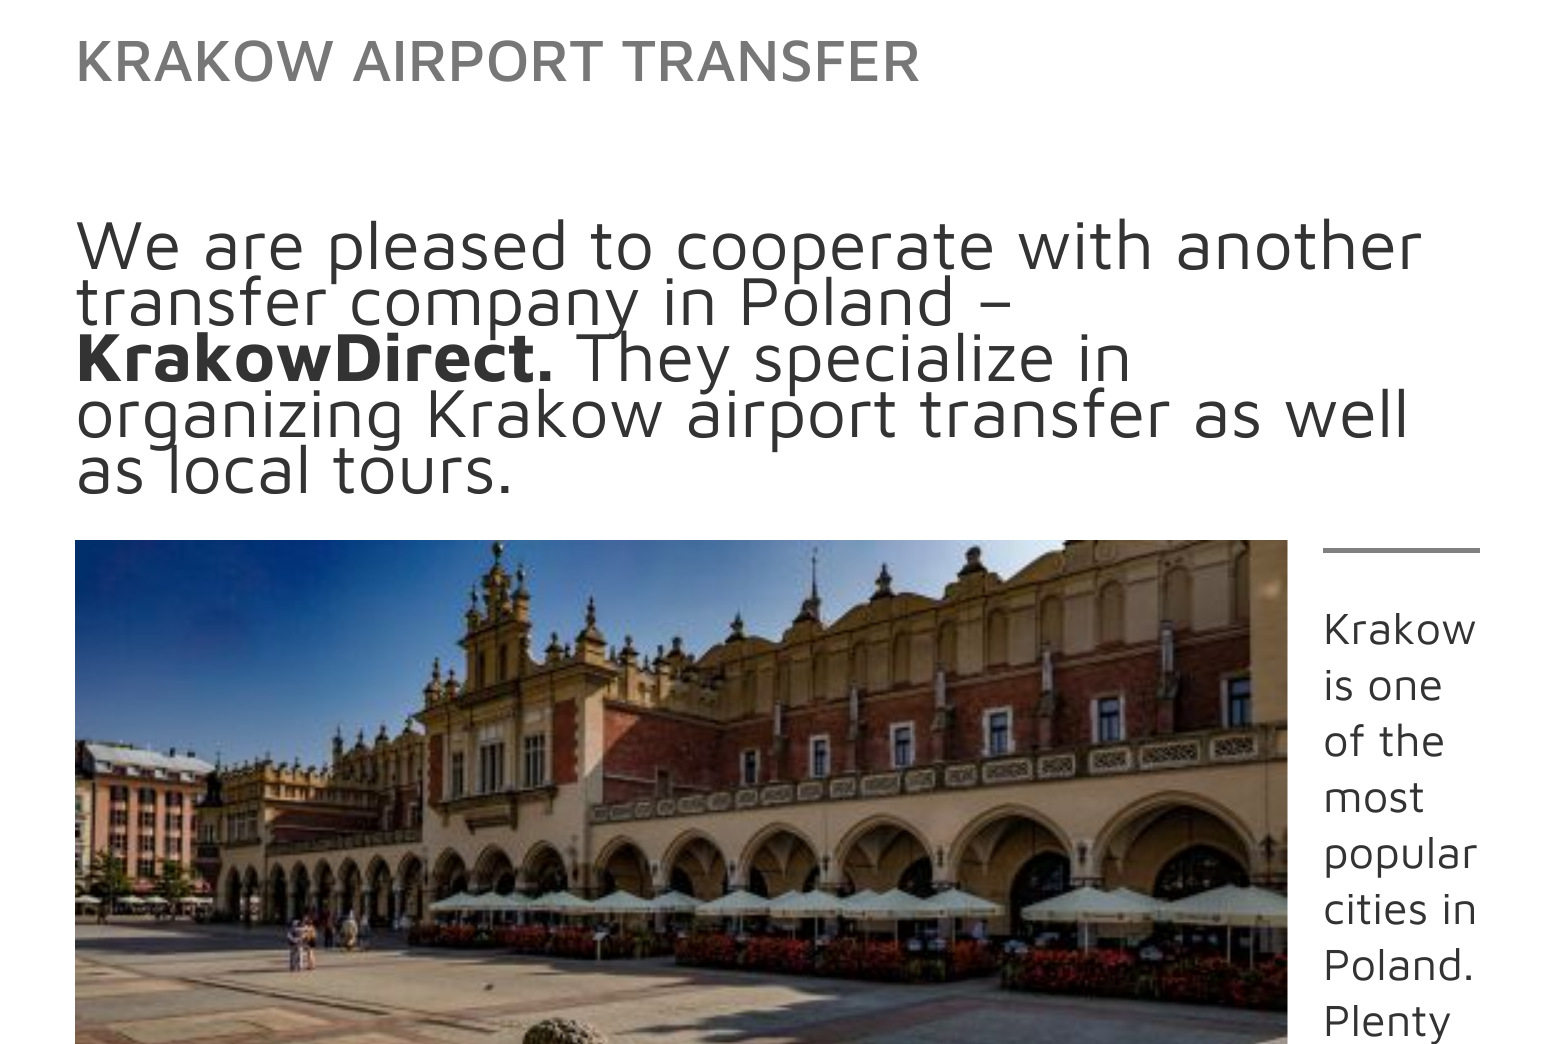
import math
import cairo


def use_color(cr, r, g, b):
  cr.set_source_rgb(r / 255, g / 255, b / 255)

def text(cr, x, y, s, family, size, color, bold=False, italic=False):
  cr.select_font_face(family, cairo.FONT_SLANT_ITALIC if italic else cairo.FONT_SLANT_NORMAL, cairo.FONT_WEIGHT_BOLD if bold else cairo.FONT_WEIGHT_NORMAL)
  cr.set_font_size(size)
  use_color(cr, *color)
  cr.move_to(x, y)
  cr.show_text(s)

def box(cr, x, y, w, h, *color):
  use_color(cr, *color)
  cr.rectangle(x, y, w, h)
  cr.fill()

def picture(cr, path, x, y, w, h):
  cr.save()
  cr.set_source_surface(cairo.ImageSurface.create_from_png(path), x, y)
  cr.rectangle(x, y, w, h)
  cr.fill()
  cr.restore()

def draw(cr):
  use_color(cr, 255, 255, 255)
  cr.paint()
  picture(cr, "img_01.png", 75, 540, 1213, 504)
  box(cr, 1323, 548, 157, 5, 128, 128, 128)
  text(cr, 75, 81, "KRAKOW AIRPORT TRANSFER", "Maven Pro Medium", 60, (119, 119, 119))
  text(cr, 75, 269, "We are pleased to cooperate with another", "Maven Pro", 70, (51, 51, 51))
  text(cr, 75, 325, "transfer company in Poland –", "Maven Pro", 70, (51, 51, 51))
  text(cr, 75, 381, "KrakowDirect.", "Maven Pro", 70, (51, 51, 51), bold=True)
  text(cr, 575, 381, "They specialize in", "Maven Pro", 70, (51, 51, 51))
  text(cr, 75, 437, "organizing Krakow airport transfer as well", "Maven Pro", 70, (51, 51, 51))
  text(cr, 75, 493, "as local tours.", "Maven Pro", 70, (51, 51, 51))
  text(cr, 1323, 644, "Krakow", "Maven Pro", 45, (51, 51, 51))
  text(cr, 1323, 700, "is one", "Maven Pro", 45, (51, 51, 51))
  text(cr, 1323, 756, "of the", "Maven Pro", 45, (51, 51, 51))
  text(cr, 1323, 812, "most", "Maven Pro", 45, (51, 51, 51))
  text(cr, 1323, 868, "popular", "Maven Pro", 45, (51, 51, 51))
  text(cr, 1323, 924, "cities in", "Maven Pro", 45, (51, 51, 51))
  text(cr, 1323, 980, "Poland.", "Maven Pro", 45, (51, 51, 51))
  text(cr, 1323, 1036, "Plenty", "Maven Pro", 45, (51, 51, 51))


surface = cairo.ImageSurface(cairo.FORMAT_RGB24, 1554, 1044)
cr = cairo.Context(surface)
options = cairo.FontOptions()
options.set_hint_metrics(cairo.HINT_METRICS_OFF)
options.set_hint_style(cairo.HINT_STYLE_NONE)
cr.set_font_options(options)
cr.set_miter_limit(4)
draw(cr)
surface.write_to_png("out.png")
